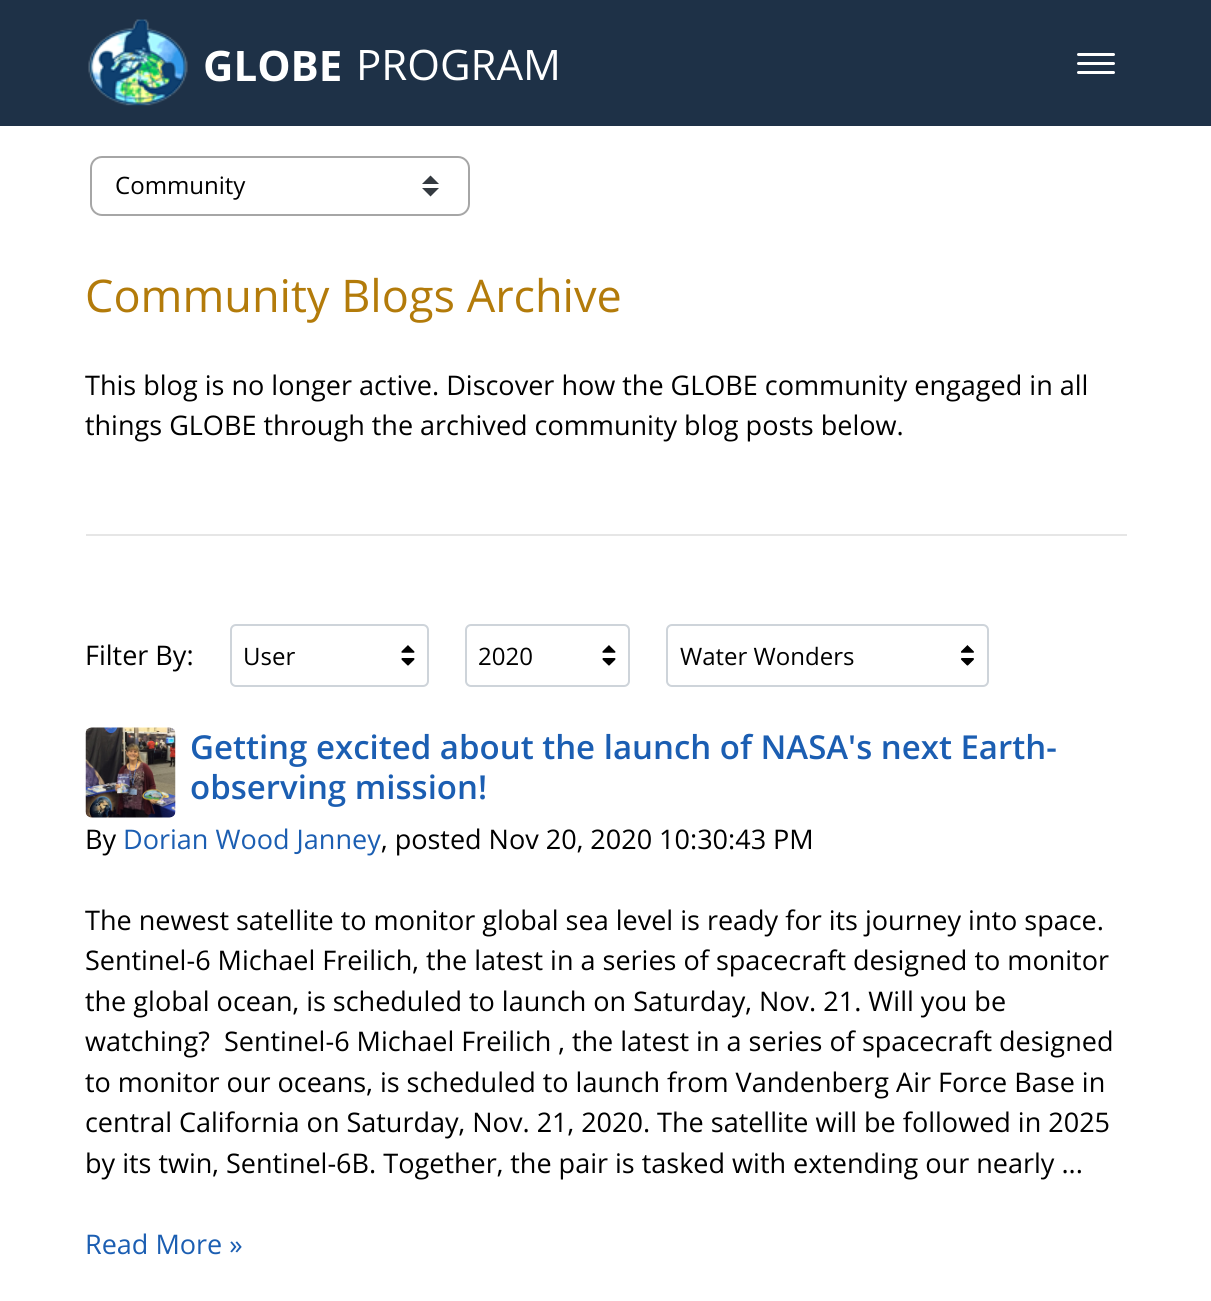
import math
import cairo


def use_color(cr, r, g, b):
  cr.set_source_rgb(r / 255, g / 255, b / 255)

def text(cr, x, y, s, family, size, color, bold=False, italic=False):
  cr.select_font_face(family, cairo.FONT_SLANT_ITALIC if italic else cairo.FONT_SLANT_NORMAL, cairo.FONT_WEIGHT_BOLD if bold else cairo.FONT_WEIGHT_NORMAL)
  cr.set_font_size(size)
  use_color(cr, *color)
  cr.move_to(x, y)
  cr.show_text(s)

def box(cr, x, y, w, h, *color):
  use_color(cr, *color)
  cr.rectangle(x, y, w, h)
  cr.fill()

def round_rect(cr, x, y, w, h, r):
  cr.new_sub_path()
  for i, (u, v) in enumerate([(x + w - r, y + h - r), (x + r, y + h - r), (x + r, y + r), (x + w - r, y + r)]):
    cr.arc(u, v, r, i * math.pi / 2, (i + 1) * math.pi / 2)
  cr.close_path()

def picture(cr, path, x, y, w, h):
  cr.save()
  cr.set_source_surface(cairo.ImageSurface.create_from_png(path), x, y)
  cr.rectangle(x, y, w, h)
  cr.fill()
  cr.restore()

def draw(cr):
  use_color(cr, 255, 255, 255)
  cr.paint()
  box(cr, 0, 0, 1211, 126, 30, 49, 71)
  picture(cr, "img_01.png", 88, 19, 100, 87)
  use_color(cr, 255, 255, 255)
  round_rect(cr, 1077, 53, 38, 3, 1.5)
  cr.fill()
  round_rect(cr, 1077, 62, 38, 3, 1.5)
  cr.fill()
  round_rect(cr, 1077, 71, 38, 3, 1.5)
  cr.fill()
  round_rect(cr, 91, 157, 378, 58, 11)
  use_color(cr, 166, 166, 166)
  cr.stroke()
  use_color(cr, 52, 58, 64)
  cr.new_path()
  cr.move_to(430.5, 175.5)
  cr.line_to(422, 184)
  cr.line_to(439, 184)
  cr.close_path()
  cr.move_to(430.5, 196.5)
  cr.line_to(422, 188)
  cr.line_to(439, 188)
  cr.close_path()
  cr.fill()
  box(cr, 86, 534, 1041, 2, 230, 230, 230)
  round_rect(cr, 231, 625, 197, 61, 5)
  use_color(cr, 206, 212, 218)
  cr.stroke()
  picture(cr, "img_02.png", 401, 645, 14, 21)
  round_rect(cr, 466, 625, 163, 61, 5)
  cr.stroke()
  picture(cr, "img_02.png", 602, 645, 14, 21)
  round_rect(cr, 667, 625, 321, 61, 5)
  cr.stroke()
  picture(cr, "img_03.png", 961, 645, 13, 21)
  picture(cr, "img_04.png", 85, 727, 91, 91)
  text(cr, 203, 81, "GLOBE", "Open Sans", 42, (255, 255, 255), bold=True)
  text(cr, 356, 80, "PROGRAM", "Open Sans", 42, (255, 255, 255))
  text(cr, 115, 194, "Community", "Open Sans", 24, (0, 0, 0))
  text(cr, 85, 312, "Community Blogs Archive", "Open Sans", 45, (179, 123, 10))
  text(cr, 85, 395, "This blog is no longer active. Discover how the GLOBE community engaged in all", "Open Sans", 27, (0, 0, 0))
  text(cr, 85, 435, "things GLOBE through the archived community blog posts below.", "Open Sans", 27, (0, 0, 0))
  text(cr, 85, 665, "Filter By:", "Open Sans", 27, (0, 0, 0))
  text(cr, 243, 665, "User", "Open Sans", 24, (0, 0, 0))
  text(cr, 478, 665, "2020", "Open Sans", 24, (0, 0, 0))
  text(cr, 680, 665, "Water Wonders", "Open Sans", 24, (0, 0, 0))
  text(cr, 190, 759, "Getting excited about the launch of NASA's next Earth-", "Open Sans SemiBold", 33, (27, 94, 178))
  text(cr, 190, 799, "observing mission!", "Open Sans SemiBold", 33, (27, 94, 178))
  text(cr, 85, 849, "By", "Open Sans", 27, (0, 0, 0))
  text(cr, 123, 849, "Dorian Wood Janney", "Open Sans", 27, (27, 94, 178))
  text(cr, 381, 849, ", posted Nov 20, 2020 10:30:43 PM", "Open Sans", 27, (0, 0, 0))
  text(cr, 85, 930, "The newest satellite to monitor global sea level is ready for its journey into space.", "Open Sans", 27, (0, 0, 0))
  text(cr, 85, 970, "Sentinel-6 Michael Freilich, the latest in a series of spacecraft designed to monitor", "Open Sans", 27, (0, 0, 0))
  text(cr, 85, 1011, "the global ocean, is scheduled to launch on Saturday, Nov. 21. Will you be", "Open Sans", 27, (0, 0, 0))
  text(cr, 85, 1051, "watching?", "Open Sans", 27, (0, 0, 0))
  text(cr, 224, 1051, "Sentinel-6 Michael Freilich , the latest in a series of spacecraft designed", "Open Sans", 27, (0, 0, 0))
  text(cr, 85, 1092, "to monitor our oceans, is scheduled to launch from Vandenberg Air Force Base in", "Open Sans", 27, (0, 0, 0))
  text(cr, 85, 1132, "central California on Saturday, Nov. 21, 2020. The satellite will be followed in 2025", "Open Sans", 27, (0, 0, 0))
  text(cr, 85, 1173, "by its twin, Sentinel-6B. Together, the pair is tasked with extending our nearly ...", "Open Sans", 27, (0, 0, 0))
  text(cr, 85, 1254, "Read More »", "Open Sans", 27, (27, 94, 178))


surface = cairo.ImageSurface(cairo.FORMAT_RGB24, 1211, 1301)
cr = cairo.Context(surface)
options = cairo.FontOptions()
options.set_hint_metrics(cairo.HINT_METRICS_OFF)
options.set_hint_style(cairo.HINT_STYLE_NONE)
cr.set_font_options(options)
cr.set_miter_limit(4)
draw(cr)
surface.write_to_png("out.png")
